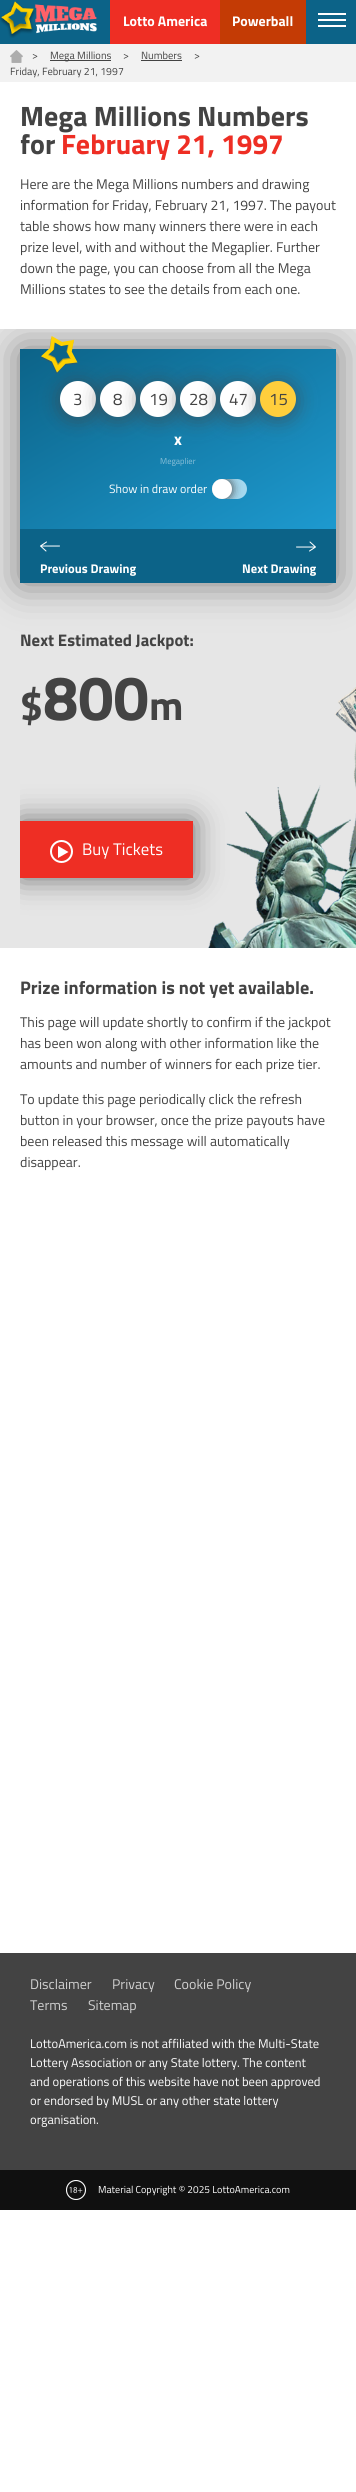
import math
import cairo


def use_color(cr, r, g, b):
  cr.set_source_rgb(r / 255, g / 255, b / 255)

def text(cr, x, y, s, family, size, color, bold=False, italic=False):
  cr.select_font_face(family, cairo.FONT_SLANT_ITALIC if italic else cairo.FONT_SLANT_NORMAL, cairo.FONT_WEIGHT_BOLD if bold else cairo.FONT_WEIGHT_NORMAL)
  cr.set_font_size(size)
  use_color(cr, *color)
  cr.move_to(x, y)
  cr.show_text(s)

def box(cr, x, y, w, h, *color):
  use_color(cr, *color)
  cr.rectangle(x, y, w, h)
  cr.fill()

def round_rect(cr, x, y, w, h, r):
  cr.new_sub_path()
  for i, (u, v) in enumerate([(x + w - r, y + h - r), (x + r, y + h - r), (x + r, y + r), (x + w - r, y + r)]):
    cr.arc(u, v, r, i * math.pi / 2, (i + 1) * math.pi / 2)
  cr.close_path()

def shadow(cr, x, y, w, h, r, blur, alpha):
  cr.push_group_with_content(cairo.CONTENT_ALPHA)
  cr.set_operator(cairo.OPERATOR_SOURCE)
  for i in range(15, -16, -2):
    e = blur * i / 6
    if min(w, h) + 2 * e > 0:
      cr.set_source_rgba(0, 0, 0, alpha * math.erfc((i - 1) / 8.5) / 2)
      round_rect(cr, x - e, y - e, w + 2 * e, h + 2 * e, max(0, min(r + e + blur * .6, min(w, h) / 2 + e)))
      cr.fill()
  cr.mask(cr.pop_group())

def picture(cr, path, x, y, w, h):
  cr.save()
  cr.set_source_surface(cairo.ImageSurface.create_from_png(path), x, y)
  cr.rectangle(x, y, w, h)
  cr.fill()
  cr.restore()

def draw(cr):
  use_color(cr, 255, 255, 255)
  cr.paint()
  box(cr, 0, 0, 356, 44, 12, 99, 136)
  picture(cr, "img_01.png", 0, 1, 97, 37)
  box(cr, 110, 0, 110, 44, 238, 46, 36)
  box(cr, 220, 0, 86, 44, 196, 59, 5)
  box(cr, 318, 13, 28, 2, 255, 255, 255)
  box(cr, 318, 19, 28, 2, 255, 255, 255)
  box(cr, 318, 25, 28, 2, 255, 255, 255)
  box(cr, 0, 44, 356, 38, 242, 242, 242)
  picture(cr, "img_02.png", 10, 50, 13, 13)
  box(cr, 50, 60, 61, 1, 67, 67, 67)
  box(cr, 141, 60, 41, 1, 67, 67, 67)
  box(cr, 0, 329, 356, 619, 230, 230, 230)
  cr.save()
  cr.rectangle(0, 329, 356, 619)
  cr.clip()
  use_color(cr, 67, 67, 67)
  shadow(cr, 20, 349, 316, 234, 0, 20, 0.65)
  cr.restore()
  gradient = cairo.LinearGradient(88, 310, 268, 622)
  gradient.add_color_stop_rgba(0, 0.047, 0.388, 0.533, 1)
  gradient.add_color_stop_rgba(1, 0.125, 0.635, 0.855, 1)
  cr.set_source(gradient)
  cr.rectangle(20, 349, 316, 180)
  cr.fill()
  use_color(cr, 67, 67, 67)
  shadow(cr, 60, 383, 36, 36, 18, 10, 0.65)
  use_color(cr, 255, 255, 255)
  cr.arc(78, 399, 18, 0, 2 * math.pi)
  cr.fill()
  use_color(cr, 67, 67, 67)
  shadow(cr, 100, 383, 36, 36, 18, 10, 0.65)
  picture(cr, "img_03.png", 40, 336, 38, 38)
  use_color(cr, 255, 255, 255)
  cr.arc(118, 399, 18, 0, 2 * math.pi)
  cr.fill()
  use_color(cr, 67, 67, 67)
  shadow(cr, 140, 383, 36, 36, 18, 10, 0.65)
  use_color(cr, 255, 255, 255)
  cr.arc(158, 399, 18, 0, 2 * math.pi)
  cr.fill()
  use_color(cr, 67, 67, 67)
  shadow(cr, 180, 383, 36, 36, 18, 10, 0.65)
  use_color(cr, 255, 255, 255)
  cr.arc(198, 399, 18, 0, 2 * math.pi)
  cr.fill()
  use_color(cr, 67, 67, 67)
  shadow(cr, 220, 383, 36, 36, 18, 10, 0.65)
  use_color(cr, 255, 255, 255)
  cr.arc(238, 399, 18, 0, 2 * math.pi)
  cr.fill()
  use_color(cr, 67, 67, 67)
  shadow(cr, 260, 383, 36, 36, 18, 10, 0.65)
  use_color(cr, 255, 206, 60)
  cr.arc(278, 399, 18, 0, 2 * math.pi)
  cr.fill()
  use_color(cr, 165, 217, 239)
  round_rect(cr, 212, 479, 35, 20, 10)
  cr.fill()
  cr.save()
  round_rect(cr, 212, 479, 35, 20, 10)
  cr.clip()
  use_color(cr, 67, 67, 67)
  shadow(cr, 212, 479, 20, 20, 10, 5, 1)
  cr.restore()
  use_color(cr, 255, 255, 255)
  cr.arc(222, 489, 10, 0, 2 * math.pi)
  cr.fill()
  box(cr, 20, 529, 316, 54, 12, 99, 136)
  cr.new_path()
  cr.move_to(46, 551)
  cr.line_to(40.5, 546)
  cr.line_to(46.5, 542)
  cr.move_to(40.5, 546)
  cr.line_to(59.5, 546)
  use_color(cr, 255, 255, 255)
  cr.set_line_width(1)
  cr.set_line_cap(cairo.LINE_CAP_ROUND)
  cr.set_line_join(cairo.LINE_JOIN_ROUND)
  cr.stroke()
  cr.new_path()
  cr.move_to(310, 542)
  cr.line_to(315.5, 547)
  cr.line_to(309.5, 551)
  cr.move_to(315.5, 547)
  cr.line_to(296.5, 547)
  cr.stroke()
  picture(cr, "img_04.png", 208, 687, 148, 261)
  cr.save()
  cr.rectangle(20, 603, 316, 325)
  cr.clip()
  use_color(cr, 67, 67, 67)
  shadow(cr, 20, 821, 173, 57, 0, 15, 0.75)
  cr.restore()
  box(cr, 20, 821, 173, 57, 238, 46, 36)
  cr.arc(61.5, 851.5, 10.5, 0, 2 * math.pi)
  use_color(cr, 255, 255, 255)
  cr.set_line_width(2)
  cr.set_line_cap(cairo.LINE_CAP_BUTT)
  cr.set_line_join(cairo.LINE_JOIN_MITER)
  cr.stroke()
  cr.new_path()
  cr.move_to(58, 858)
  cr.line_to(68.5, 852)
  cr.line_to(58, 846)
  cr.close_path()
  cr.fill()
  box(cr, 0, 1953, 356, 217, 67, 67, 67)
  box(cr, 0, 2170, 356, 40, 16, 16, 16)
  picture(cr, "img_05.png", 66, 2180, 20, 20)
  text(cr, 123, 26, "Lotto America", "Titillium Web", 14, (255, 255, 255), bold=True)
  text(cr, 232, 26, "Powerball", "Titillium Web", 14, (255, 255, 255), bold=True)
  text(cr, 32, 59, ">", "Titillium Web", 10.5, (67, 67, 67))
  text(cr, 50, 59, "Mega Millions", "Titillium Web", 10.5, (67, 67, 67))
  text(cr, 123, 59, ">", "Titillium Web", 10.5, (67, 67, 67))
  text(cr, 141, 59, "Numbers", "Titillium Web", 10.5, (67, 67, 67))
  text(cr, 194, 59, ">", "Titillium Web", 10.5, (67, 67, 67))
  text(cr, 10, 75, "Friday, February 21, 1997", "Titillium Web", 10.5, (67, 67, 67))
  text(cr, 20, 126, "Mega Millions Numbers", "Titillium Web", 28, (67, 67, 67), bold=True)
  text(cr, 20, 154, "for", "Titillium Web", 28, (67, 67, 67), bold=True)
  text(cr, 61, 154, "February 21, 1997", "Titillium Web", 28, (238, 46, 36), bold=True)
  text(cr, 20, 189, "Here are the Mega Millions numbers and drawing", "Titillium Web", 14, (67, 67, 67))
  text(cr, 20, 210, "information for Friday, February 21, 1997. The payout", "Titillium Web", 14, (67, 67, 67))
  text(cr, 20, 231, "table shows how many winners there were in each", "Titillium Web", 14, (67, 67, 67))
  text(cr, 20, 252, "prize level, with and without the Megaplier. Further", "Titillium Web", 14, (67, 67, 67))
  text(cr, 20, 273, "down the page, you can choose from all the Mega", "Titillium Web", 14, (67, 67, 67))
  text(cr, 20, 294, "Millions states to see the details from each one.", "Titillium Web", 14, (67, 67, 67))
  text(cr, 73, 405, "3", "Titillium Web", 16.75, (67, 67, 67))
  text(cr, 113, 405, "8", "Titillium Web", 16.75, (67, 67, 67))
  text(cr, 149, 405, "19", "Titillium Web", 16.75, (67, 67, 67))
  text(cr, 189, 405, "28", "Titillium Web", 16.75, (67, 67, 67))
  text(cr, 229, 405, "47", "Titillium Web", 16.75, (67, 67, 67))
  text(cr, 269, 405, "15", "Titillium Web", 16.75, (67, 67, 67))
  text(cr, 174, 445, "x", "Titillium Web", 16.75, (255, 255, 255), bold=True)
  text(cr, 160, 464, "Megaplier", "Titillium Web", 8.5, (138, 192, 216))
  text(cr, 109, 493, "Show in draw order", "Titillium Web", 12, (255, 255, 255))
  text(cr, 40, 573, "Previous Drawing", "Titillium Web", 12.6, (255, 255, 255), bold=True)
  text(cr, 242, 573, "Next Drawing", "Titillium Web", 12.6, (255, 255, 255), bold=True)
  text(cr, 20, 646, "Next Estimated Jackpot:", "Titillium Web", 16.75, (67, 67, 67), bold=True)
  text(cr, 20, 720, "$", "Titillium Web", 41, (67, 67, 67), bold=True)
  text(cr, 43, 720, "800", "Titillium Web", 63, (67, 67, 67), bold=True)
  text(cr, 149, 720, "m", "Titillium Web", 41, (67, 67, 67), bold=True)
  text(cr, 82, 855, "Buy Tickets", "Titillium Web", 16.75, (255, 255, 255))
  text(cr, 20, 994, "Prize information is not yet available.", "Titillium Web", 18.25, (67, 67, 67), bold=True)
  text(cr, 20, 1027, "This page will update shortly to confirm if the jackpot", "Titillium Web", 14, (67, 67, 67))
  text(cr, 20, 1048, "has been won along with other information like the", "Titillium Web", 14, (67, 67, 67))
  text(cr, 20, 1069, "amounts and number of winners for each prize tier.", "Titillium Web", 14, (67, 67, 67))
  text(cr, 20, 1104, "To update this page periodically click the refresh", "Titillium Web", 14, (67, 67, 67))
  text(cr, 20, 1125, "button in your browser, once the prize payouts have", "Titillium Web", 14, (67, 67, 67))
  text(cr, 20, 1146, "been released this message will automatically", "Titillium Web", 14, (67, 67, 67))
  text(cr, 20, 1167, "disappear.", "Titillium Web", 14, (67, 67, 67))
  text(cr, 30, 1989, "Disclaimer", "Titillium Web", 14, (208, 208, 208))
  text(cr, 112, 1989, "Privacy", "Titillium Web", 14, (208, 208, 208))
  text(cr, 174, 1989, "Cookie Policy", "Titillium Web", 14, (208, 208, 208))
  text(cr, 30, 2010, "Terms", "Titillium Web", 14, (208, 208, 208))
  text(cr, 88, 2010, "Sitemap", "Titillium Web", 14, (208, 208, 208))
  text(cr, 30, 2048, "LottoAmerica.com is not affiliated with the Multi-State", "Titillium Web", 12.6, (255, 255, 255))
  text(cr, 30, 2067, "Lottery Association or any State lottery. The content", "Titillium Web", 12.6, (255, 255, 255))
  text(cr, 30, 2086, "and operations of this website have not been approved", "Titillium Web", 12.6, (255, 255, 255))
  text(cr, 30, 2105, "or endorsed by MUSL or any other state lottery", "Titillium Web", 12.6, (255, 255, 255))
  text(cr, 30, 2124, "organisation.", "Titillium Web", 12.6, (255, 255, 255))
  text(cr, 98, 2193, "Material Copyright © 2025 LottoAmerica.com", "Titillium Web", 10.1, (255, 255, 255))


surface = cairo.ImageSurface(cairo.FORMAT_RGB24, 356, 2492)
cr = cairo.Context(surface)
options = cairo.FontOptions()
options.set_hint_metrics(cairo.HINT_METRICS_OFF)
options.set_hint_style(cairo.HINT_STYLE_NONE)
cr.set_font_options(options)
cr.set_miter_limit(4)
draw(cr)
surface.write_to_png("out.png")
